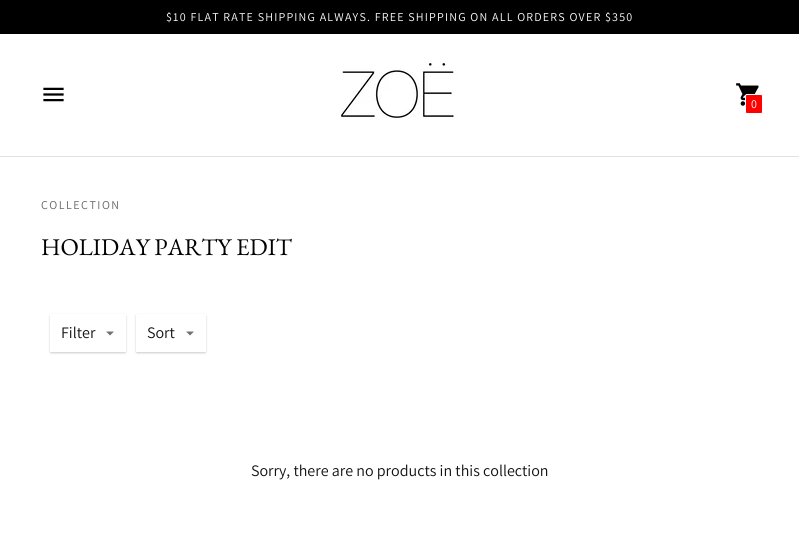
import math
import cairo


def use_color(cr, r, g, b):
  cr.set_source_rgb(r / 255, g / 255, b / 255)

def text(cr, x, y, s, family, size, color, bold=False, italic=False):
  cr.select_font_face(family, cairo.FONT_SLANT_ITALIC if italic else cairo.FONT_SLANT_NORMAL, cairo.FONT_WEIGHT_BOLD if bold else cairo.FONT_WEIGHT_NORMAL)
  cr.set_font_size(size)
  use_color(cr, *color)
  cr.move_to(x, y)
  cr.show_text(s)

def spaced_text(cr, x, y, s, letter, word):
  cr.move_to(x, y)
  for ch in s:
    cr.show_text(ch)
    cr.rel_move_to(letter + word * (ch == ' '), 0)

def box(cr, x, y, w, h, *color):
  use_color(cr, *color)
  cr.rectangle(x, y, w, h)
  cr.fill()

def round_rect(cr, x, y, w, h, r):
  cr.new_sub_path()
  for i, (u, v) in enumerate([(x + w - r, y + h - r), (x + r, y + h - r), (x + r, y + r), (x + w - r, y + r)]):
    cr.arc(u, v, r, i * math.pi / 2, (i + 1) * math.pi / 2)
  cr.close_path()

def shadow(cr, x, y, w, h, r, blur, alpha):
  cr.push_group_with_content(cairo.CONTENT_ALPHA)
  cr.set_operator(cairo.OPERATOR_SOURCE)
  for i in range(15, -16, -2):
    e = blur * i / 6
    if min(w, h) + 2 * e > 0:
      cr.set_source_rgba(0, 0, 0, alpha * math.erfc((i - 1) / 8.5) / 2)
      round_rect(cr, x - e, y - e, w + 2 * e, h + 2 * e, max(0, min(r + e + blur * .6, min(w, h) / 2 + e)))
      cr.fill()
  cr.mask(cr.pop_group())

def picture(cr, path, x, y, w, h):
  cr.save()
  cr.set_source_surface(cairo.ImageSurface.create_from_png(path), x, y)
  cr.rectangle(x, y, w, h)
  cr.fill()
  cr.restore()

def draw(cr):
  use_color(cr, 255, 255, 255)
  cr.paint()
  box(cr, 0, 0, 799, 34, 0, 0, 0)
  box(cr, 0, 156, 799, 1, 226, 226, 226)
  picture(cr, "img_01.png", 43, 87, 21, 15)
  picture(cr, "img_02.png", 341, 63, 116, 56)
  picture(cr, "img_03.png", 736, 83, 23, 23)
  use_color(cr, 255, 0, 0)
  round_rect(cr, 745.5, 94.5, 17, 19, 1.5)
  cr.fill_preserve()
  use_color(cr, 255, 255, 255)
  cr.set_line_width(1)
  cr.stroke()
  use_color(cr, 0, 0, 0)
  shadow(cr, 50, 315, 76, 38, 1, 1, 0.2)
  use_color(cr, 255, 255, 255)
  round_rect(cr, 50, 314, 76, 38, 1)
  cr.fill()
  use_color(cr, 113, 113, 113)
  cr.new_path()
  cr.move_to(106, 331.5)
  cr.line_to(110, 335.5)
  cr.line_to(114, 331.5)
  cr.close_path()
  cr.fill()
  use_color(cr, 0, 0, 0)
  shadow(cr, 136, 315, 70, 38, 1, 1, 0.2)
  use_color(cr, 255, 255, 255)
  round_rect(cr, 136, 314, 70, 38, 1)
  cr.fill()
  use_color(cr, 113, 113, 113)
  cr.new_path()
  cr.move_to(186, 331.5)
  cr.line_to(190, 335.5)
  cr.line_to(194, 331.5)
  cr.close_path()
  cr.fill()
  cr.select_font_face("Assistant")
  cr.set_font_size(12)
  use_color(cr, 255, 255, 255)
  spaced_text(cr, 166, 21, "$10 FLAT RATE SHIPPING ALWAYS. FREE SHIPPING ON ALL ORDERS OVER $350", 1.2, 0)
  text(cr, 751, 108, "0", "Assistant", 12, (255, 255, 255))
  use_color(cr, 102, 102, 102)
  spaced_text(cr, 41, 209, "COLLECTION", 1.5, 0)
  text(cr, 41, 255, "HOLIDAY PARTY EDIT", "EB Garamond", 24, (0, 0, 0))
  text(cr, 61, 338, "Filter", "Assistant", 16, (18, 18, 18))
  text(cr, 147, 338, "Sort", "Assistant", 16, (18, 18, 18))
  text(cr, 251, 476, "Sorry, there are no products in this collection", "Assistant", 16, (18, 18, 18))


surface = cairo.ImageSurface(cairo.FORMAT_RGB24, 799, 546)
cr = cairo.Context(surface)
options = cairo.FontOptions()
options.set_hint_metrics(cairo.HINT_METRICS_OFF)
options.set_hint_style(cairo.HINT_STYLE_NONE)
cr.set_font_options(options)
cr.set_miter_limit(4)
draw(cr)
surface.write_to_png("out.png")
